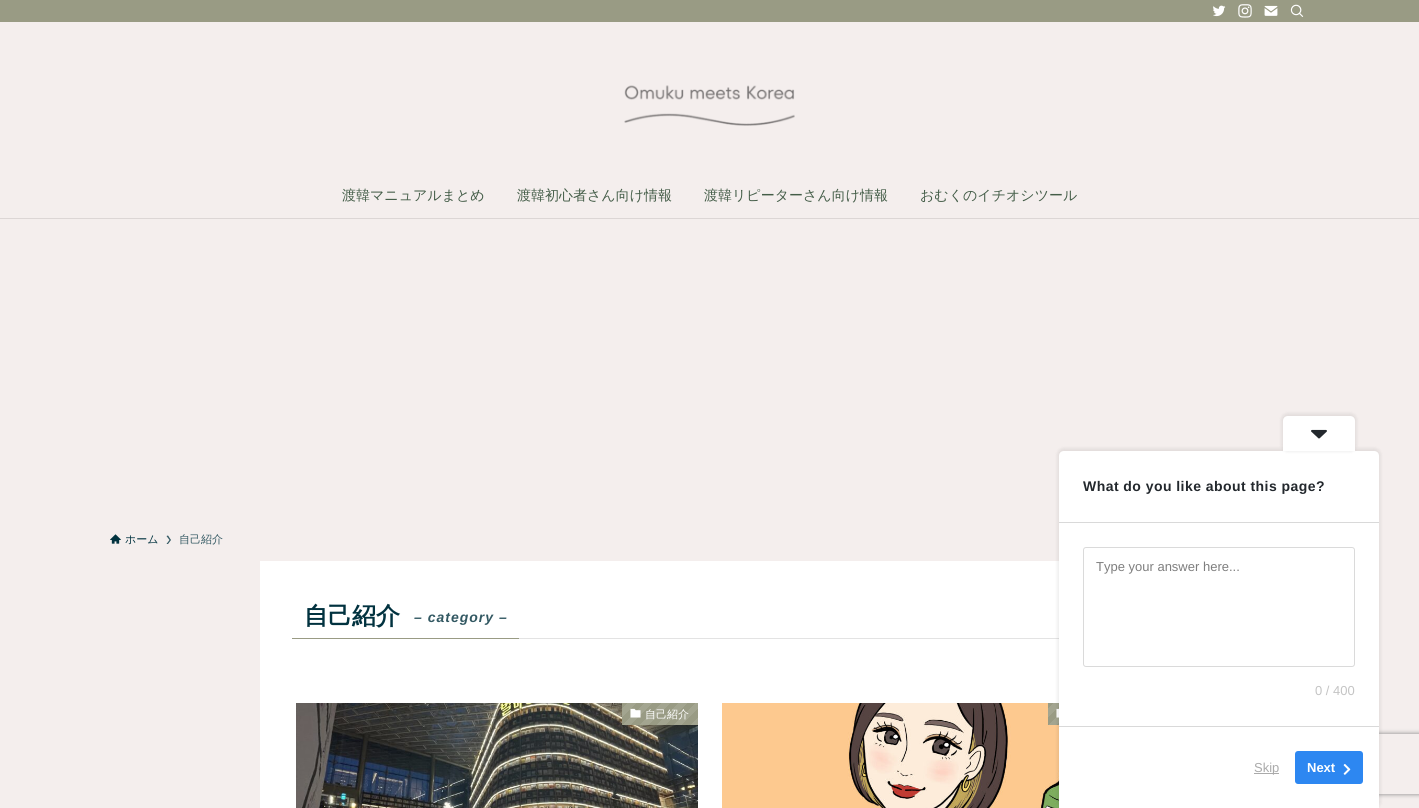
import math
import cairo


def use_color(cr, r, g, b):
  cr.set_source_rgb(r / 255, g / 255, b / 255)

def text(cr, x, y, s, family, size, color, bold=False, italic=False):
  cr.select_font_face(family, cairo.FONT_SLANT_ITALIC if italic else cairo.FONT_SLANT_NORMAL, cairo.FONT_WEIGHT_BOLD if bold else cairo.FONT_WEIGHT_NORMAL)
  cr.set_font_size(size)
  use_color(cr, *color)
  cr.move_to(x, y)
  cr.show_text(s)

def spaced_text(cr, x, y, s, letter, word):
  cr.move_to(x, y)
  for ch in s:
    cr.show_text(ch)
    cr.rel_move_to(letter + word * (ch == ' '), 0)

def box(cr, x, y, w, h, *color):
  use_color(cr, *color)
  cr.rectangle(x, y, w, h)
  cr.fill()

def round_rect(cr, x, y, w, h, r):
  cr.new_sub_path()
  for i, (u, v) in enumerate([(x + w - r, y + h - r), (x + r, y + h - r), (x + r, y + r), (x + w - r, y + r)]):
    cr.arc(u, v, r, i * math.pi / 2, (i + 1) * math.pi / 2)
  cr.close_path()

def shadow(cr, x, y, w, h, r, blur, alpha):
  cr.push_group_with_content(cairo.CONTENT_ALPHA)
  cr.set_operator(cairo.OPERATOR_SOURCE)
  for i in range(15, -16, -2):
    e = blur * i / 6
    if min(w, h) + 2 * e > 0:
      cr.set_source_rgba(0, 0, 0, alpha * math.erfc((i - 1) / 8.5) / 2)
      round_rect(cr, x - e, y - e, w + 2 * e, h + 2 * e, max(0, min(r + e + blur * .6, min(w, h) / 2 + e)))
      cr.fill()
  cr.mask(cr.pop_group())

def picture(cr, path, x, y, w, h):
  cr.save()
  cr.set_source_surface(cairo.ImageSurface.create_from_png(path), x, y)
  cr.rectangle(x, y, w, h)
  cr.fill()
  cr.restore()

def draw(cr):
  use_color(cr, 244, 238, 237)
  cr.paint()
  box(cr, 0, 218, 1419, 1, 220, 214, 213)
  box(cr, 0, 0, 1419, 22, 153, 155, 132)
  picture(cr, "img_01.png", 1213, 5, 13, 12)
  picture(cr, "img_02.png", 1238, 4, 14, 14)
  picture(cr, "img_03.png", 1264, 5, 14, 11)
  picture(cr, "img_04.png", 1290, 4, 14, 13)
  picture(cr, "img_05.png", 624, 85, 171, 41)
  picture(cr, "img_06.png", 110, 534, 11, 10)
  use_color(cr, 50, 88, 98)
  cr.new_path()
  cr.move_to(168, 535.5)
  cr.line_to(166.5, 536)
  cr.line_to(169.5, 540)
  cr.line_to(166.5, 544)
  cr.line_to(168, 544)
  cr.line_to(171, 540)
  cr.close_path()
  cr.fill()
  box(cr, 260, 561, 799, 247, 255, 255, 255)
  box(cr, 519, 638, 540, 1, 227, 227, 227)
  box(cr, 292, 638, 227, 1, 153, 155, 132)
  picture(cr, "img_07.png", 296, 703, 402, 105)
  gradient = cairo.LinearGradient(685, 739, 634, 688)
  gradient.add_color_stop_rgba(0, 0.639, 0.647, 0.565, 1)
  gradient.add_color_stop_rgba(0.08, 0.639, 0.647, 0.565, 1)
  gradient.add_color_stop_rgba(0.08, 0.6, 0.608, 0.518, 1)
  gradient.add_color_stop_rgba(0.17, 0.6, 0.608, 0.518, 1)
  gradient.add_color_stop_rgba(0.17, 0.639, 0.647, 0.565, 1)
  gradient.add_color_stop_rgba(0.25, 0.639, 0.647, 0.565, 1)
  gradient.add_color_stop_rgba(0.25, 0.6, 0.608, 0.518, 1)
  gradient.add_color_stop_rgba(0.33, 0.6, 0.608, 0.518, 1)
  gradient.add_color_stop_rgba(0.33, 0.639, 0.647, 0.565, 1)
  gradient.add_color_stop_rgba(0.42, 0.639, 0.647, 0.565, 1)
  gradient.add_color_stop_rgba(0.42, 0.6, 0.608, 0.518, 1)
  gradient.add_color_stop_rgba(0.5, 0.6, 0.608, 0.518, 1)
  gradient.add_color_stop_rgba(0.5, 0.639, 0.647, 0.565, 1)
  gradient.add_color_stop_rgba(0.58, 0.639, 0.647, 0.565, 1)
  gradient.add_color_stop_rgba(0.58, 0.6, 0.608, 0.518, 1)
  gradient.add_color_stop_rgba(0.67, 0.6, 0.608, 0.518, 1)
  gradient.add_color_stop_rgba(0.67, 0.639, 0.647, 0.565, 1)
  gradient.add_color_stop_rgba(0.75, 0.639, 0.647, 0.565, 1)
  gradient.add_color_stop_rgba(0.75, 0.6, 0.608, 0.518, 1)
  gradient.add_color_stop_rgba(0.83, 0.6, 0.608, 0.518, 1)
  gradient.add_color_stop_rgba(0.83, 0.639, 0.647, 0.565, 1)
  gradient.add_color_stop_rgba(0.92, 0.639, 0.647, 0.565, 1)
  gradient.add_color_stop_rgba(0.92, 0.6, 0.608, 0.518, 1)
  gradient.add_color_stop_rgba(1, 0.6, 0.608, 0.518, 1)
  cr.set_source(gradient)
  cr.rectangle(622, 703, 76, 22)
  cr.fill()
  picture(cr, "img_08.png", 630, 708, 11, 10)
  picture(cr, "img_09.png", 722, 703, 337, 105)
  gradient = cairo.LinearGradient(1111, 739, 1060, 688)
  gradient.add_color_stop_rgba(0, 0.639, 0.647, 0.565, 1)
  gradient.add_color_stop_rgba(0.08, 0.639, 0.647, 0.565, 1)
  gradient.add_color_stop_rgba(0.08, 0.6, 0.608, 0.518, 1)
  gradient.add_color_stop_rgba(0.17, 0.6, 0.608, 0.518, 1)
  gradient.add_color_stop_rgba(0.17, 0.639, 0.647, 0.565, 1)
  gradient.add_color_stop_rgba(0.25, 0.639, 0.647, 0.565, 1)
  gradient.add_color_stop_rgba(0.25, 0.6, 0.608, 0.518, 1)
  gradient.add_color_stop_rgba(0.33, 0.6, 0.608, 0.518, 1)
  gradient.add_color_stop_rgba(0.33, 0.639, 0.647, 0.565, 1)
  gradient.add_color_stop_rgba(0.42, 0.639, 0.647, 0.565, 1)
  gradient.add_color_stop_rgba(0.42, 0.6, 0.608, 0.518, 1)
  gradient.add_color_stop_rgba(0.5, 0.6, 0.608, 0.518, 1)
  gradient.add_color_stop_rgba(0.5, 0.639, 0.647, 0.565, 1)
  gradient.add_color_stop_rgba(0.58, 0.639, 0.647, 0.565, 1)
  gradient.add_color_stop_rgba(0.58, 0.6, 0.608, 0.518, 1)
  gradient.add_color_stop_rgba(0.67, 0.6, 0.608, 0.518, 1)
  gradient.add_color_stop_rgba(0.67, 0.639, 0.647, 0.565, 1)
  gradient.add_color_stop_rgba(0.75, 0.639, 0.647, 0.565, 1)
  gradient.add_color_stop_rgba(0.75, 0.6, 0.608, 0.518, 1)
  gradient.add_color_stop_rgba(0.83, 0.6, 0.608, 0.518, 1)
  gradient.add_color_stop_rgba(0.83, 0.639, 0.647, 0.565, 1)
  gradient.add_color_stop_rgba(0.92, 0.639, 0.647, 0.565, 1)
  gradient.add_color_stop_rgba(0.92, 0.6, 0.608, 0.518, 1)
  gradient.add_color_stop_rgba(1, 0.6, 0.608, 0.518, 1)
  cr.set_source(gradient)
  cr.rectangle(1048, 703, 11, 22)
  cr.fill()
  picture(cr, "img_10.png", 1056, 708, 3, 10)
  use_color(cr, 0, 0, 0)
  shadow(cr, 1057, 448, 324, 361, 7, 1.5, 0.07)
  cr.save()
  cr.set_fill_rule(cairo.FILL_RULE_EVEN_ODD)
  cr.new_path()
  cr.move_to(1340, 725)
  cr.line_to(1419, 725)
  cr.line_to(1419, 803)
  cr.line_to(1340, 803)
  cr.close_path()
  cr.move_to(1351, 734)
  cr.line_to(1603, 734)
  cr.curve_to(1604, 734, 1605, 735, 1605, 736)
  cr.line_to(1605, 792)
  cr.curve_to(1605, 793, 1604, 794, 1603, 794)
  cr.line_to(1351, 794)
  cr.curve_to(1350, 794, 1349, 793, 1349, 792)
  cr.line_to(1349, 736)
  cr.curve_to(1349, 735, 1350, 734, 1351, 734)
  cr.close_path()
  cr.clip()
  use_color(cr, 128, 128, 128)
  shadow(cr, 1349, 734, 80, 60, 2, 2.5, 1)
  cr.restore()
  use_color(cr, 255, 255, 255)
  cr.new_path()
  cr.move_to(1064, 451)
  cr.line_to(1374, 451)
  cr.curve_to(1377, 451, 1379, 453, 1379, 456)
  cr.line_to(1379, 808)
  cr.line_to(1059, 808)
  cr.line_to(1059, 456)
  cr.curve_to(1059, 453, 1061, 451, 1064, 451)
  cr.close_path()
  cr.fill()
  use_color(cr, 0, 0, 0)
  shadow(cr, 1281, 413, 76, 39, 7, 1.5, 0.07)
  use_color(cr, 255, 255, 255)
  cr.new_path()
  cr.move_to(1288, 416)
  cr.line_to(1350, 416)
  cr.curve_to(1353, 416, 1355, 418, 1355, 421)
  cr.line_to(1355, 451)
  cr.line_to(1283, 451)
  cr.line_to(1283, 421)
  cr.curve_to(1283, 418, 1285, 416, 1288, 416)
  cr.close_path()
  cr.fill()
  picture(cr, "img_11.png", 1311, 429, 16, 10)
  box(cr, 1059, 522, 320, 1, 217, 217, 217)
  box(cr, 1059, 726, 320, 1, 217, 217, 217)
  round_rect(cr, 1083.5, 547.5, 271, 119, 2.5)
  use_color(cr, 218, 218, 218)
  cr.set_line_width(1)
  cr.stroke()
  box(cr, 1254, 773, 25, 1, 170, 170, 170)
  use_color(cr, 45, 135, 241)
  round_rect(cr, 1295, 751, 68, 33, 3)
  cr.fill()
  picture(cr, "img_12.png", 1343, 764, 8, 11)
  text(cr, 342, 200, "渡韓マニュアルまとめ", "WenQuanYi Zen Hei Medium", 14, (68, 93, 72))
  text(cr, 517, 200, "渡韓初心者さん向け情報", "WenQuanYi Zen Hei Medium", 14, (68, 93, 72))
  text(cr, 704, 200, "渡韓リピーターさん向け情報", "WenQuanYi Zen Hei Medium", 14, (68, 93, 72))
  text(cr, 920, 200, "おむくのイチオシツール", "WenQuanYi Zen Hei Medium", 14, (68, 93, 72))
  text(cr, 125, 543, "ホーム", "WenQuanYi Zen Hei Medium", 11, (1, 50, 63))
  text(cr, 179, 543, "自己紹介", "WenQuanYi Zen Hei Medium", 11, (50, 88, 98))
  text(cr, 304, 624, "自己紹介", "WenQuanYi Zen Hei", 24, (1, 50, 63), bold=True)
  cr.select_font_face("Liberation Sans", cairo.FONT_SLANT_ITALIC, cairo.FONT_WEIGHT_BOLD)
  cr.set_font_size(14)
  use_color(cr, 50, 88, 98)
  spaced_text(cr, 414, 622, "– category –", 1, 0)
  text(cr, 645, 718, "自己紹介", "WenQuanYi Zen Hei Medium", 11, (255, 255, 255))
  cr.select_font_face("Liberation Sans", cairo.FONT_SLANT_NORMAL, cairo.FONT_WEIGHT_BOLD)
  cr.set_font_size(14)
  use_color(cr, 35, 40, 45)
  spaced_text(cr, 1083, 491, "What do you like about this page?", 0.45, 0)
  text(cr, 1096, 571, "Type your answer here...", "Liberation Sans", 13, (126, 126, 126))
  text(cr, 1315, 695, "0 / 400", "Liberation Sans", 13, (196, 196, 196))
  text(cr, 1254, 772, "Skip", "Liberation Sans", 13, (170, 170, 170))
  text(cr, 1307, 772, "Next", "Liberation Sans", 13, (255, 255, 255), bold=True)


surface = cairo.ImageSurface(cairo.FORMAT_RGB24, 1419, 808)
cr = cairo.Context(surface)
options = cairo.FontOptions()
options.set_hint_metrics(cairo.HINT_METRICS_OFF)
options.set_hint_style(cairo.HINT_STYLE_NONE)
cr.set_font_options(options)
cr.set_miter_limit(4)
draw(cr)
surface.write_to_png("out.png")
